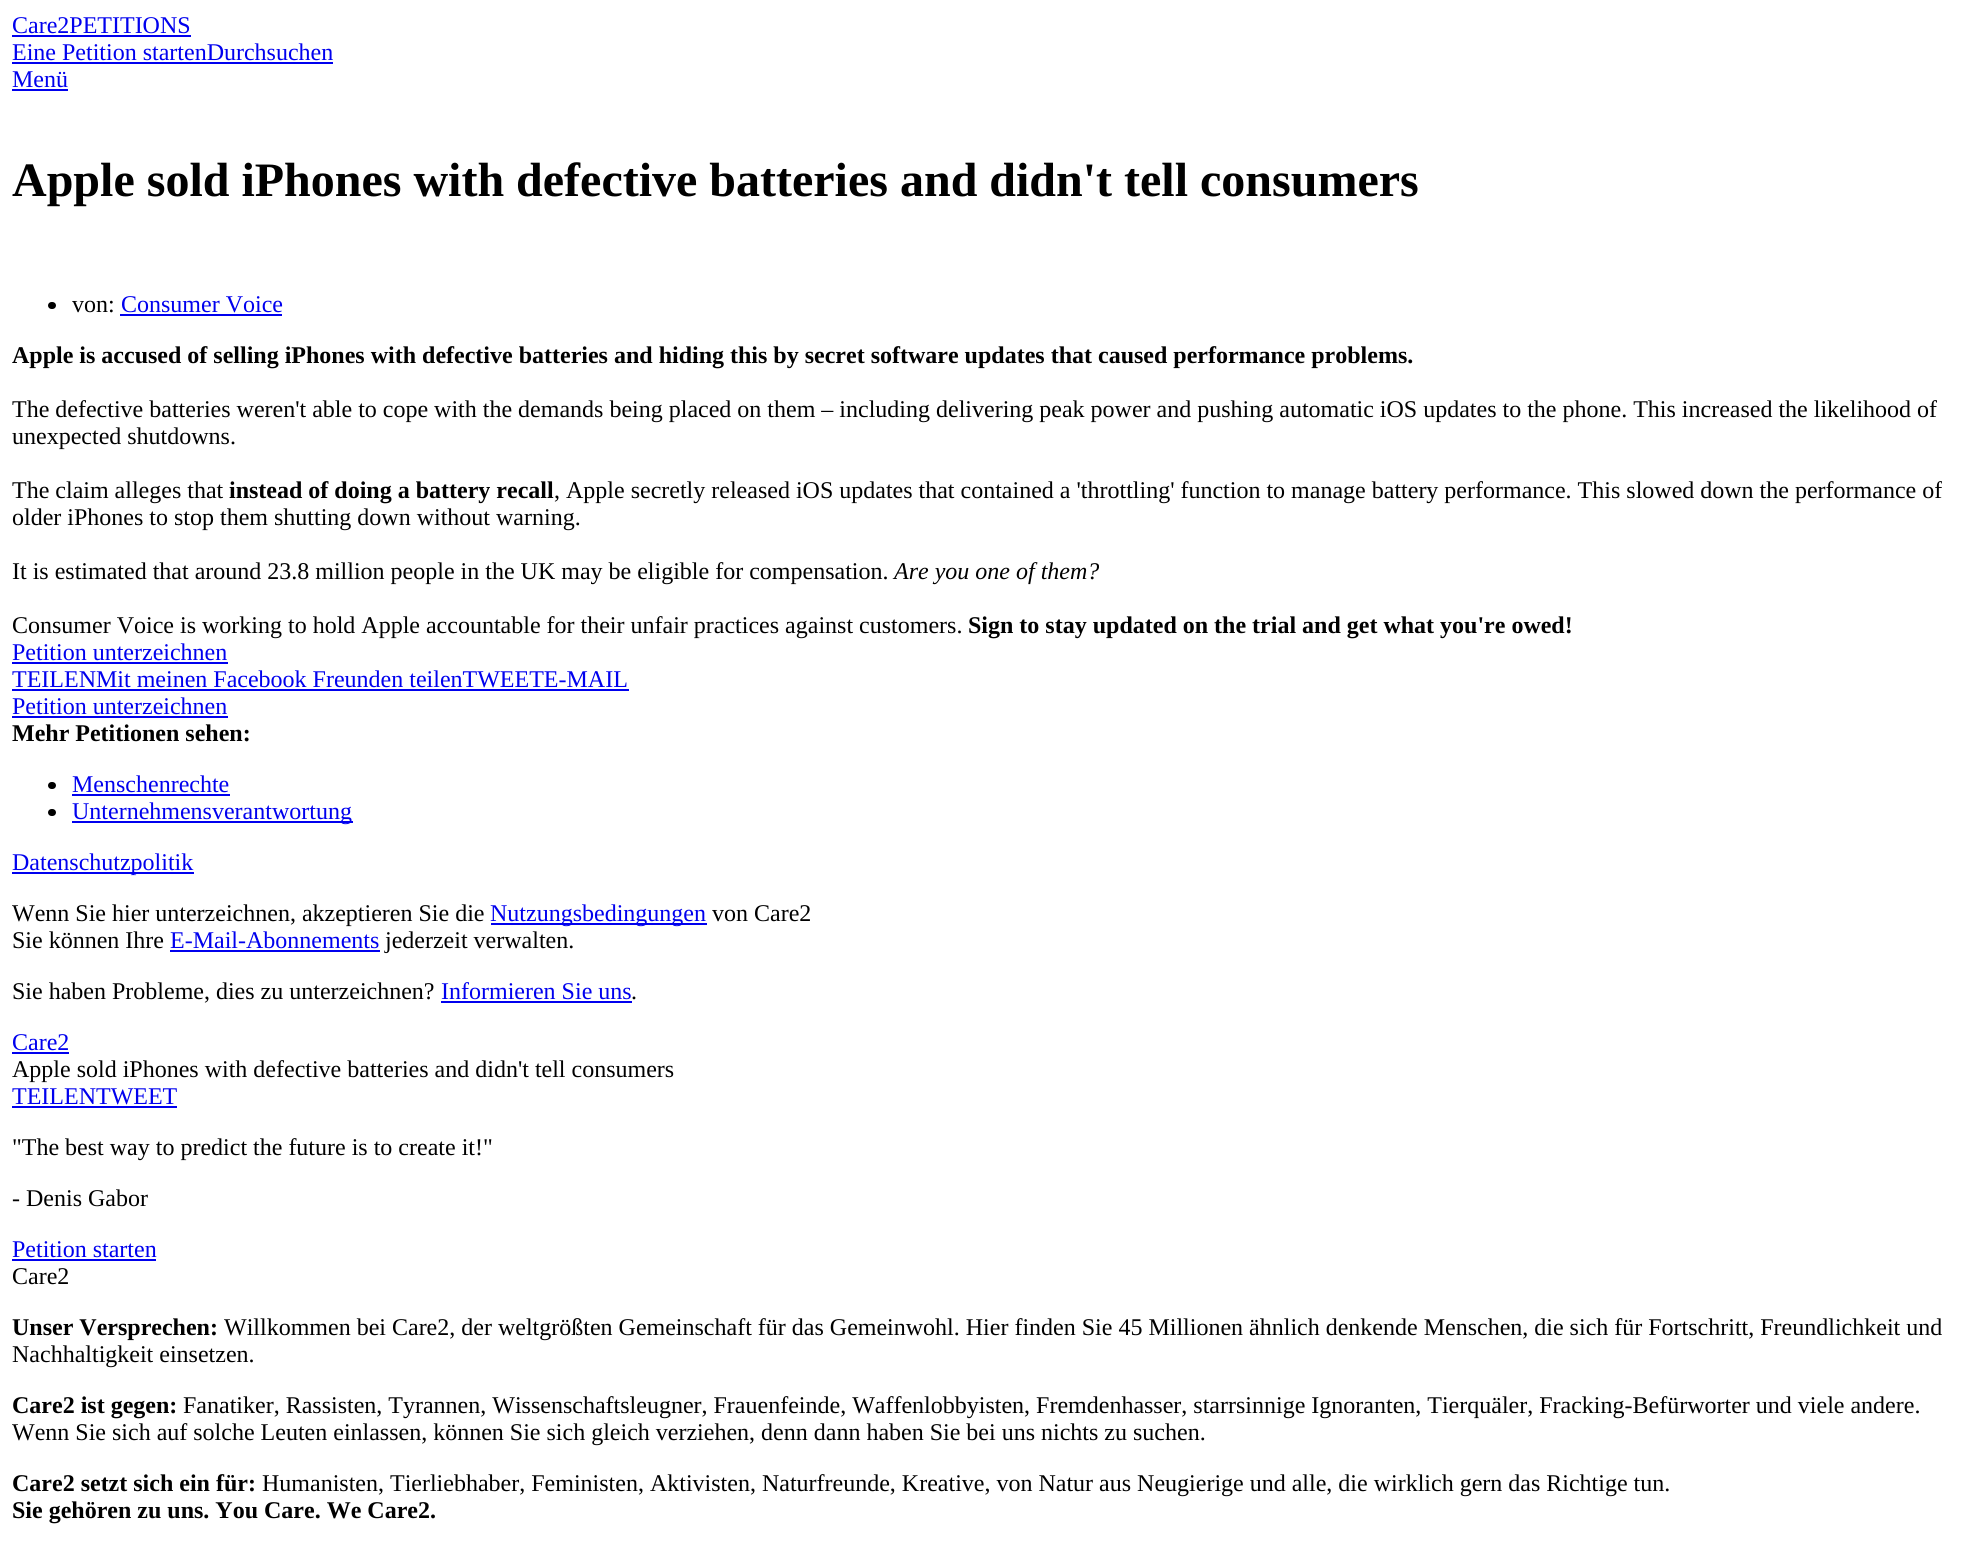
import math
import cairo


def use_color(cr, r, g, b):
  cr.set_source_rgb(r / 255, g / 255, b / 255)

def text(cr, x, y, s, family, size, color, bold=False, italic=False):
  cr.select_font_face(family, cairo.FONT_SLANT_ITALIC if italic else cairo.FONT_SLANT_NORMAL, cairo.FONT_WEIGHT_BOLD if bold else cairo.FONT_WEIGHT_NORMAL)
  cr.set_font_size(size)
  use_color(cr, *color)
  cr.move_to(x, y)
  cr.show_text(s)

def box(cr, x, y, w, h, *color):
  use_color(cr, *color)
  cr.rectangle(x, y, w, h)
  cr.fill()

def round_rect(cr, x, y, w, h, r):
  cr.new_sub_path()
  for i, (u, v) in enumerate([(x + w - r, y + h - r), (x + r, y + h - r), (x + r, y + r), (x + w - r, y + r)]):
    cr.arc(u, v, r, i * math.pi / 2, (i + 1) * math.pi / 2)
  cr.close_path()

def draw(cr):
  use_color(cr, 255, 255, 255)
  cr.paint()
  box(cr, 12, 35, 179, 2, 0, 0, 238)
  box(cr, 12, 62, 321, 2, 0, 0, 238)
  box(cr, 12, 89, 56, 2, 0, 0, 238)
  use_color(cr, 0, 0, 0)
  round_rect(cr, 48, 302, 8, 7, 3.5)
  cr.fill()
  box(cr, 120, 314, 162, 2, 0, 0, 238)
  box(cr, 12, 662, 216, 2, 0, 0, 238)
  box(cr, 12, 689, 617, 2, 0, 0, 238)
  box(cr, 12, 716, 216, 2, 0, 0, 238)
  use_color(cr, 0, 0, 0)
  round_rect(cr, 48, 782, 8, 7, 3.5)
  cr.fill()
  box(cr, 72, 794, 158, 2, 0, 0, 238)
  use_color(cr, 0, 0, 0)
  round_rect(cr, 48, 809, 8, 7, 3.5)
  cr.fill()
  box(cr, 72, 821, 281, 2, 0, 0, 238)
  box(cr, 12, 872, 182, 2, 0, 0, 238)
  box(cr, 491, 923, 216, 2, 0, 0, 238)
  box(cr, 170, 950, 210, 2, 0, 0, 238)
  box(cr, 441, 1001, 191, 2, 0, 0, 238)
  box(cr, 12, 1052, 57, 2, 0, 0, 238)
  box(cr, 12, 1106, 165, 2, 0, 0, 238)
  box(cr, 12, 1259, 144, 2, 0, 0, 238)
  text(cr, 12, 33, "Care2PETITIONS", "Liberation Serif", 24, (0, 0, 238))
  text(cr, 12, 60, "Eine Petition startenDurchsuchen", "Liberation Serif", 24, (0, 0, 238))
  text(cr, 12, 87, "Menü", "Liberation Serif", 24, (0, 0, 238))
  text(cr, 12, 196, "Apple sold iPhones with defective batteries and didn't tell consumers", "Liberation Serif", 48, (0, 0, 0), bold=True)
  text(cr, 72, 312, "von:", "Liberation Serif", 24, (0, 0, 0))
  text(cr, 121, 312, "Consumer Voice", "Liberation Serif", 24, (0, 0, 238))
  text(cr, 12, 363, "Apple is accused of selling iPhones with defective batteries and hiding this by secret software updates that caused performance problems.", "Liberation Serif", 24, (0, 0, 0), bold=True)
  text(cr, 12, 417, "The defective batteries weren't able to cope with the demands being placed on them – including delivering peak power and pushing automatic iOS updates to the phone. This increased the likelihood of", "Liberation Serif", 24, (0, 0, 0))
  text(cr, 12, 444, "unexpected shutdowns.", "Liberation Serif", 24, (0, 0, 0))
  text(cr, 12, 498, "The claim alleges that", "Liberation Serif", 24, (0, 0, 0))
  text(cr, 229, 498, "instead of doing a battery recall", "Liberation Serif", 24, (0, 0, 0), bold=True)
  text(cr, 554, 498, ", Apple secretly released iOS updates that contained a 'throttling' function to manage battery performance. This slowed down the performance of", "Liberation Serif", 24, (0, 0, 0))
  text(cr, 12, 525, "older iPhones to stop them shutting down without warning.", "Liberation Serif", 24, (0, 0, 0))
  text(cr, 12, 579, "It is estimated that around 23.8 million people in the UK may be eligible for compensation.", "Liberation Serif", 24, (0, 0, 0))
  text(cr, 894, 579, "Are you one of them?", "Liberation Serif", 24, (0, 0, 0), italic=True)
  text(cr, 12, 633, "Consumer Voice is working to hold Apple accountable for their unfair practices against customers.", "Liberation Serif", 24, (0, 0, 0))
  text(cr, 968, 633, "Sign to stay updated on the trial and get what you're owed!", "Liberation Serif", 24, (0, 0, 0), bold=True)
  text(cr, 12, 660, "Petition unterzeichnen", "Liberation Serif", 24, (0, 0, 238))
  text(cr, 12, 687, "TEILENMit meinen Facebook Freunden teilenTWEETE-MAIL", "Liberation Serif", 24, (0, 0, 238))
  text(cr, 12, 714, "Petition unterzeichnen", "Liberation Serif", 24, (0, 0, 238))
  text(cr, 12, 741, "Mehr Petitionen sehen:", "Liberation Serif", 24, (0, 0, 0), bold=True)
  text(cr, 72, 792, "Menschenrechte", "Liberation Serif", 24, (0, 0, 238))
  text(cr, 72, 819, "Unternehmensverantwortung", "Liberation Serif", 24, (0, 0, 238))
  text(cr, 12, 870, "Datenschutzpolitik", "Liberation Serif", 24, (0, 0, 238))
  text(cr, 12, 921, "Wenn Sie hier unterzeichnen, akzeptieren Sie die", "Liberation Serif", 24, (0, 0, 0))
  text(cr, 490, 921, "Nutzungsbedingungen", "Liberation Serif", 24, (0, 0, 238))
  text(cr, 712, 921, "von Care2", "Liberation Serif", 24, (0, 0, 0))
  text(cr, 12, 948, "Sie können Ihre", "Liberation Serif", 24, (0, 0, 0))
  text(cr, 170, 948, "E-Mail-Abonnements", "Liberation Serif", 24, (0, 0, 238))
  text(cr, 385, 948, "jederzeit verwalten.", "Liberation Serif", 24, (0, 0, 0))
  text(cr, 12, 999, "Sie haben Probleme, dies zu unterzeichnen?", "Liberation Serif", 24, (0, 0, 0))
  text(cr, 441, 999, "Informieren Sie uns", "Liberation Serif", 24, (0, 0, 238))
  text(cr, 631, 999, ".", "Liberation Serif", 24, (0, 0, 0))
  text(cr, 12, 1050, "Care2", "Liberation Serif", 24, (0, 0, 238))
  text(cr, 12, 1077, "Apple sold iPhones with defective batteries and didn't tell consumers", "Liberation Serif", 24, (0, 0, 0))
  text(cr, 12, 1104, "TEILENTWEET", "Liberation Serif", 24, (0, 0, 238))
  text(cr, 12, 1155, "\"The best way to predict the future is to create it!\"", "Liberation Serif", 24, (0, 0, 0))
  text(cr, 12, 1206, "- Denis Gabor", "Liberation Serif", 24, (0, 0, 0))
  text(cr, 12, 1257, "Petition starten", "Liberation Serif", 24, (0, 0, 238))
  text(cr, 12, 1284, "Care2", "Liberation Serif", 24, (0, 0, 0))
  text(cr, 12, 1335, "Unser Versprechen:", "Liberation Serif", 24, (0, 0, 0), bold=True)
  text(cr, 224, 1335, "Willkommen bei Care2, der weltgrößten Gemeinschaft für das Gemeinwohl. Hier finden Sie 45 Millionen ähnlich denkende Menschen, die sich für Fortschritt, Freundlichkeit und", "Liberation Serif", 24, (0, 0, 0))
  text(cr, 12, 1362, "Nachhaltigkeit einsetzen.", "Liberation Serif", 24, (0, 0, 0))
  text(cr, 12, 1413, "Care2 ist gegen:", "Liberation Serif", 24, (0, 0, 0), bold=True)
  text(cr, 183, 1413, "Fanatiker, Rassisten, Tyrannen, Wissenschaftsleugner, Frauenfeinde, Waffenlobbyisten, Fremdenhasser, starrsinnige Ignoranten, Tierquäler, Fracking-Befürworter und viele andere.", "Liberation Serif", 24, (0, 0, 0))
  text(cr, 12, 1440, "Wenn Sie sich auf solche Leuten einlassen, können Sie sich gleich verziehen, denn dann haben Sie bei uns nichts zu suchen.", "Liberation Serif", 24, (0, 0, 0))
  text(cr, 12, 1491, "Care2 setzt sich ein für:", "Liberation Serif", 24, (0, 0, 0), bold=True)
  text(cr, 262, 1491, "Humanisten, Tierliebhaber, Feministen, Aktivisten, Naturfreunde, Kreative, von Natur aus Neugierige und alle, die wirklich gern das Richtige tun.", "Liberation Serif", 24, (0, 0, 0))
  text(cr, 12, 1518, "Sie gehören zu uns. You Care. We Care2.", "Liberation Serif", 24, (0, 0, 0), bold=True)


surface = cairo.ImageSurface(cairo.FORMAT_RGB24, 1974, 1549)
cr = cairo.Context(surface)
options = cairo.FontOptions()
options.set_hint_metrics(cairo.HINT_METRICS_OFF)
options.set_hint_style(cairo.HINT_STYLE_NONE)
cr.set_font_options(options)
cr.set_miter_limit(4)
draw(cr)
surface.write_to_png("out.png")
